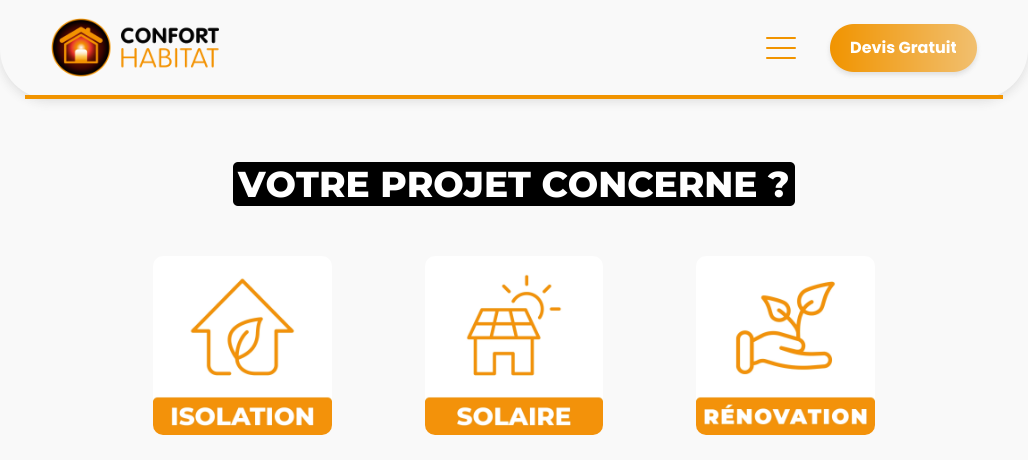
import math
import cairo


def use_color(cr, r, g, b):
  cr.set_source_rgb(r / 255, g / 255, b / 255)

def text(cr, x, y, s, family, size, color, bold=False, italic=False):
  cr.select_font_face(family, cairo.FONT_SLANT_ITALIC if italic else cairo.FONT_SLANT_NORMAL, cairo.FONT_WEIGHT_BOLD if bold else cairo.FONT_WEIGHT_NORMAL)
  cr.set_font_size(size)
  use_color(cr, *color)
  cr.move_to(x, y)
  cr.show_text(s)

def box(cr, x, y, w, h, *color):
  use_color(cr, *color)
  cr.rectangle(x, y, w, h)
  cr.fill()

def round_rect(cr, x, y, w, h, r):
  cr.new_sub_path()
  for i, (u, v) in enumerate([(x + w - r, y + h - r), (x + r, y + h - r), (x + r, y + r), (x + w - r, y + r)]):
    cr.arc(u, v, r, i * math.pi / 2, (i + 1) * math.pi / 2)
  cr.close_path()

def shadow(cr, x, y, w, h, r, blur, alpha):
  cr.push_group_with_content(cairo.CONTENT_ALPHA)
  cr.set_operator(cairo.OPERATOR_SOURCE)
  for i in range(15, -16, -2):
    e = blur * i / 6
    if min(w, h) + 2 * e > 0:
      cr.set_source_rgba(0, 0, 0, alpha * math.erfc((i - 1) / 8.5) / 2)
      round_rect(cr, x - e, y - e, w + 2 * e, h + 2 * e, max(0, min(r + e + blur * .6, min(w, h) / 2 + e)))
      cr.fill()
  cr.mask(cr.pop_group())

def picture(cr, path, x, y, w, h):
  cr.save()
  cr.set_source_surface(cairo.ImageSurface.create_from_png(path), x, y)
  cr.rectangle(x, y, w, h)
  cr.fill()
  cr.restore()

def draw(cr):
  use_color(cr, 249, 249, 249)
  cr.paint()
  use_color(cr, 0, 0, 0)
  shadow(cr, 0, 3, 1028, 99, 50, 5, 0.1)
  use_color(cr, 249, 249, 249)
  cr.new_path()
  cr.move_to(0, 0)
  cr.line_to(1028, 0)
  cr.line_to(1028, 49)
  cr.curve_to(1028, 76.5, 1005.5, 99, 978, 99)
  cr.line_to(50, 99)
  cr.curve_to(22.5, 99, 0, 76.5, 0, 49)
  cr.close_path()
  cr.fill()
  box(cr, 25, 95, 978, 4, 241, 148, 0)
  picture(cr, "img_01.png", 51, 18, 168, 59)
  round_rect(cr, 766, 37, 30, 2, 1)
  cr.fill()
  round_rect(cr, 766, 47, 30, 2, 1)
  cr.fill()
  round_rect(cr, 766, 57, 30, 2, 1)
  cr.fill()
  use_color(cr, 0, 0, 0)
  shadow(cr, 830, 27, 147, 48, 24, 2.5, 0.1)
  gradient = cairo.LinearGradient(830, 48, 977, 48)
  gradient.add_color_stop_rgba(0, 0.945, 0.58, 0, 1)
  gradient.add_color_stop_rgba(1, 0.945, 0.749, 0.435, 1)
  cr.set_source(gradient)
  round_rect(cr, 830, 24, 147, 48, 24)
  cr.fill()
  use_color(cr, 0, 0, 0)
  round_rect(cr, 233, 162, 562, 44, 5)
  cr.fill()
  picture(cr, "img_02.png", 153, 256, 179, 179)
  picture(cr, "img_03.png", 425, 256, 178, 179)
  picture(cr, "img_04.png", 696, 256, 179, 179)
  text(cr, 850, 53, "Devis Gratuit", "Poppins", 16, (255, 255, 255), bold=True)
  text(cr, 238, 197, "VOTRE PROJET CONCERNE ?", "Montserrat ExtraBold", 36, (255, 255, 255))


surface = cairo.ImageSurface(cairo.FORMAT_RGB24, 1028, 460)
cr = cairo.Context(surface)
options = cairo.FontOptions()
options.set_hint_metrics(cairo.HINT_METRICS_OFF)
options.set_hint_style(cairo.HINT_STYLE_NONE)
cr.set_font_options(options)
cr.set_miter_limit(4)
draw(cr)
surface.write_to_png("out.png")
